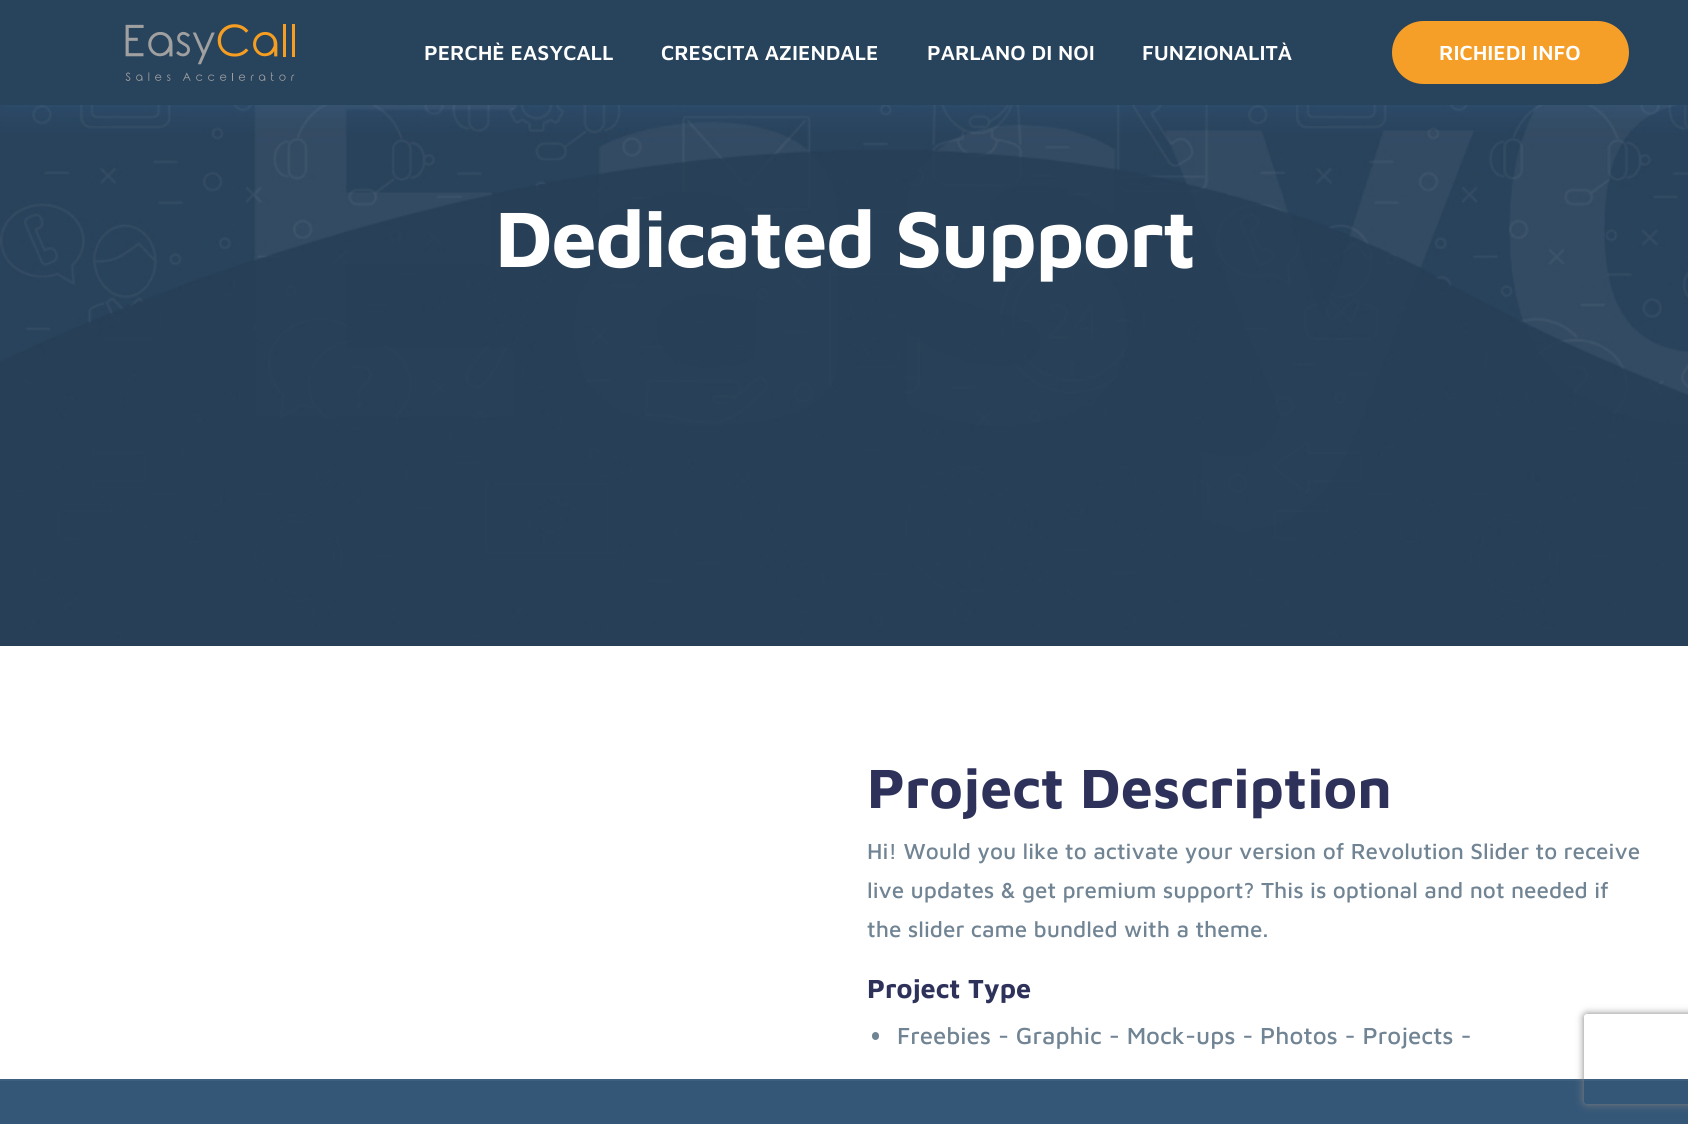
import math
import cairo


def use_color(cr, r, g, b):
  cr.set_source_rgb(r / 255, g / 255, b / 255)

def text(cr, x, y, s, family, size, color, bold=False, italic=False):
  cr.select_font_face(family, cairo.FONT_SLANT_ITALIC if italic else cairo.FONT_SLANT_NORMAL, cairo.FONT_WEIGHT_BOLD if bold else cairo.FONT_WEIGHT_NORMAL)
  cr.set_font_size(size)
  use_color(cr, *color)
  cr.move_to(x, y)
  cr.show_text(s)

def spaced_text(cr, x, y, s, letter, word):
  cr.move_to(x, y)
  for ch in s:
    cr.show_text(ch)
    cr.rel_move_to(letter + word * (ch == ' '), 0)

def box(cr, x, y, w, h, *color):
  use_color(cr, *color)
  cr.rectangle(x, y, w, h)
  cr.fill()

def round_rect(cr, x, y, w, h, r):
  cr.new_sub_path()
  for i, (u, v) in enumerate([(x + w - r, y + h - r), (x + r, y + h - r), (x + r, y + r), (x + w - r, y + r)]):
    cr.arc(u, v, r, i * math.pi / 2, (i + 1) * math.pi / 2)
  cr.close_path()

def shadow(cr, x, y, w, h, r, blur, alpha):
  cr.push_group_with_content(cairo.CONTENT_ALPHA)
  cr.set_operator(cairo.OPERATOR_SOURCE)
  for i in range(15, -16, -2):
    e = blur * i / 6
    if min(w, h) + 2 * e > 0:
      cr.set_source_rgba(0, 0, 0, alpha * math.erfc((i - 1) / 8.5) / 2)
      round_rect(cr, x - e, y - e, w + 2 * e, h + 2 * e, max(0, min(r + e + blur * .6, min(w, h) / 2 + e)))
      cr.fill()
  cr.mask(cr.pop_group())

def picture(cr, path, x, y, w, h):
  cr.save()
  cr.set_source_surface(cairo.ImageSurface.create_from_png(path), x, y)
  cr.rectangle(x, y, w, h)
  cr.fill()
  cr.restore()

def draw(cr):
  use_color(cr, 255, 255, 255)
  cr.paint()
  picture(cr, "img_02.png", 0, 105, 1688, 541)
  use_color(cr, 64, 124, 191)
  shadow(cr, 0, 5, 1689, 105, 0, 15, 0.2)
  box(cr, 0, 0, 1688, 105, 40, 67, 92)
  picture(cr, "img_01.png", 125, 24, 170, 57)
  use_color(cr, 245, 158, 40)
  round_rect(cr, 1392, 21, 237, 63, 31.5)
  cr.fill()
  use_color(cr, 113, 132, 148)
  round_rect(cr, 872, 1032, 7, 8, 3.5)
  cr.fill()
  box(cr, 0, 1081, 1688, 43, 53, 87, 119)
  box(cr, 0, 1079, 1688, 2, 63, 95, 126)
  cr.save()
  cr.set_fill_rule(cairo.FILL_RULE_EVEN_ODD)
  cr.new_path()
  cr.move_to(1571, 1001)
  cr.line_to(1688, 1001)
  cr.line_to(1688, 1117)
  cr.line_to(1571, 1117)
  cr.close_path()
  cr.move_to(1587, 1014)
  cr.line_to(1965, 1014)
  cr.curve_to(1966.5, 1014, 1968, 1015.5, 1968, 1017)
  cr.line_to(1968, 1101)
  cr.curve_to(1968, 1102.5, 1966.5, 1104, 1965, 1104)
  cr.line_to(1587, 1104)
  cr.curve_to(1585.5, 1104, 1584, 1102.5, 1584, 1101)
  cr.line_to(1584, 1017)
  cr.curve_to(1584, 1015.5, 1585.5, 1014, 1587, 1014)
  cr.close_path()
  cr.clip()
  use_color(cr, 128, 128, 128)
  shadow(cr, 1584, 1014, 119, 90, 3, 4, 1)
  cr.restore()
  text(cr, 424, 60, "PERCHÈ EASYCALL", "Maven Pro SemiBold", 21, (255, 255, 255))
  text(cr, 661, 60, "CRESCITA AZIENDALE", "Maven Pro SemiBold", 21, (255, 255, 255))
  text(cr, 927, 60, "PARLANO DI NOI", "Maven Pro SemiBold", 21, (255, 255, 255))
  text(cr, 1142, 60, "FUNZIONALITÀ", "Maven Pro SemiBold", 21, (255, 255, 255))
  text(cr, 1439, 60, "RICHIEDI INFO", "Maven Pro SemiBold", 21, (255, 255, 255))
  cr.select_font_face("Maven Pro", cairo.FONT_SLANT_NORMAL, cairo.FONT_WEIGHT_BOLD)
  cr.set_font_size(81)
  spaced_text(cr, 495, 267, "Dedicated Support", -1.3, 0)
  text(cr, 867, 808, "Project Description", "Maven Pro", 57, (46, 50, 91), bold=True)
  text(cr, 867, 859, "Hi! Would you like to activate your version of Revolution Slider to receive", "Maven Pro Medium", 22.5, (113, 132, 148))
  text(cr, 867, 898, "live updates & get premium support? This is optional and not needed if", "Maven Pro Medium", 22.5, (113, 132, 148))
  text(cr, 867, 937, "the slider came bundled with a theme.", "Maven Pro Medium", 22.5, (113, 132, 148))
  text(cr, 867, 998, "Project Type", "Maven Pro", 27, (46, 50, 91), bold=True)
  text(cr, 897, 1044, "Freebies - Graphic - Mock-ups - Photos - Projects -", "Maven Pro Medium", 24, (113, 132, 148))


surface = cairo.ImageSurface(cairo.FORMAT_RGB24, 1688, 1124)
cr = cairo.Context(surface)
options = cairo.FontOptions()
options.set_hint_metrics(cairo.HINT_METRICS_OFF)
options.set_hint_style(cairo.HINT_STYLE_NONE)
cr.set_font_options(options)
cr.set_miter_limit(4)
draw(cr)
surface.write_to_png("out.png")
